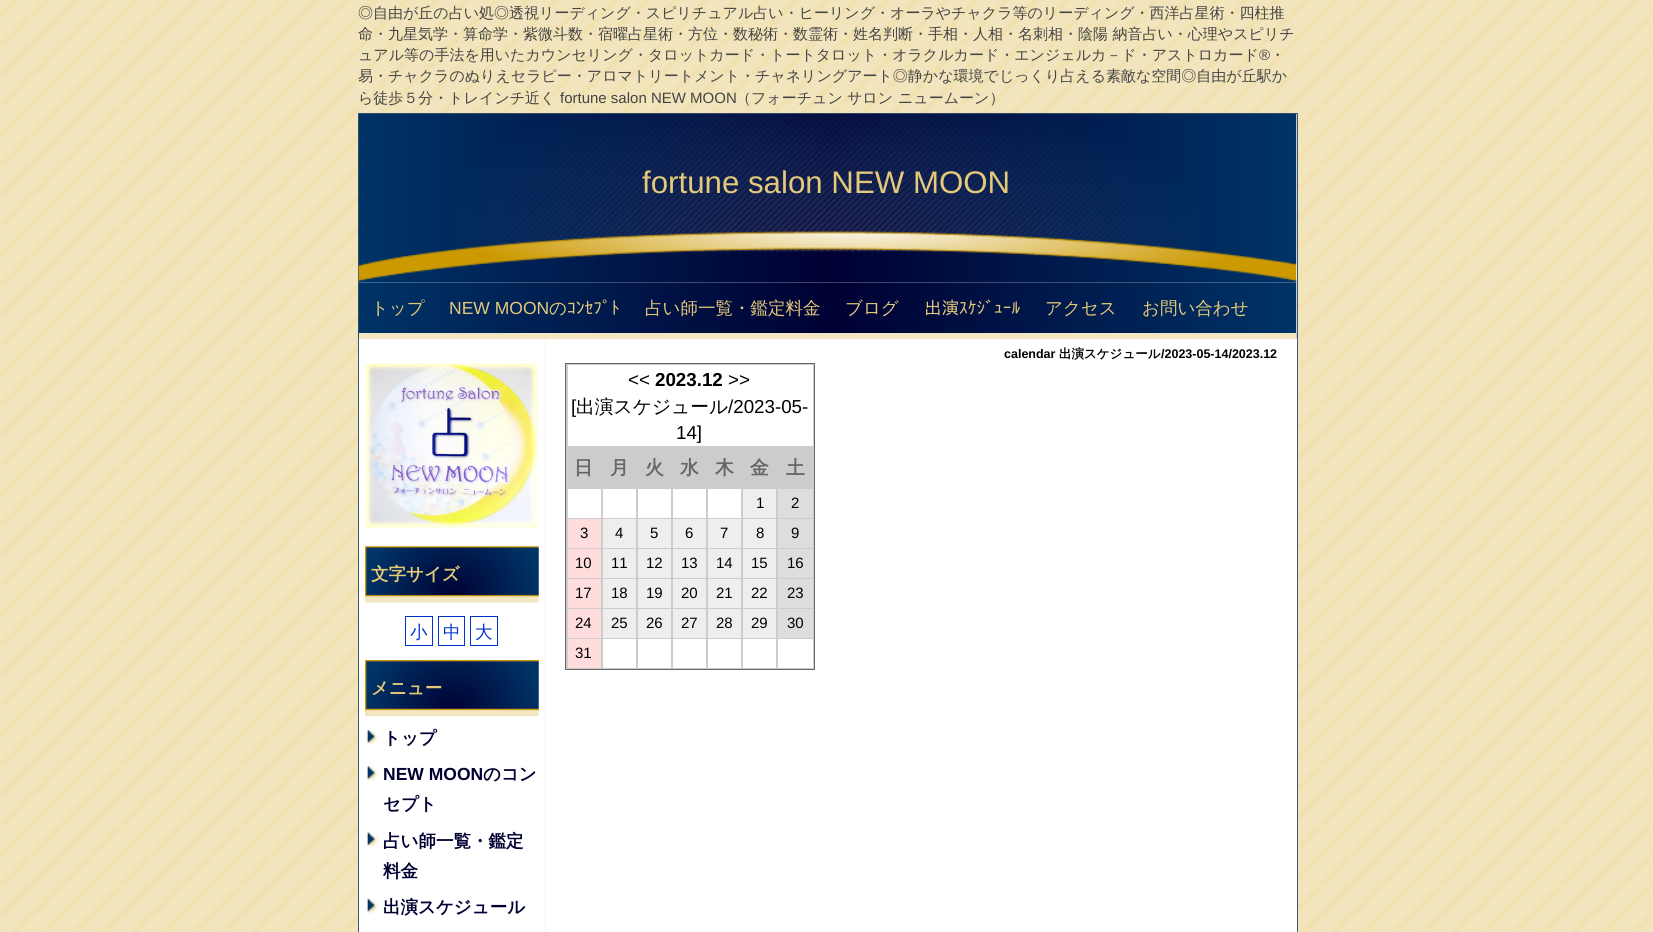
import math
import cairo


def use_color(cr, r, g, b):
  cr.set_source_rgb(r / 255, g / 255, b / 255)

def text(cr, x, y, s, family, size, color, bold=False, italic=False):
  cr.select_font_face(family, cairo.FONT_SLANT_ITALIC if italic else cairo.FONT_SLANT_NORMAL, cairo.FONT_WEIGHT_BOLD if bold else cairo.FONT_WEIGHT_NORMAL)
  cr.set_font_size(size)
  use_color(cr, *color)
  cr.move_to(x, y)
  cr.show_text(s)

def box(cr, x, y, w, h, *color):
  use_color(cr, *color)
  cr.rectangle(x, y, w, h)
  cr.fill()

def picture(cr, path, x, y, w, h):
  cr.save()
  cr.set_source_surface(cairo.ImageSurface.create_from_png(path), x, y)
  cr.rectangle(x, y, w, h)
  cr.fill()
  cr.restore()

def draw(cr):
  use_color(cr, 255, 255, 255)
  cr.paint()
  picture(cr, "img_01.png", 0, 0, 1653, 932)
  use_color(cr, 255, 255, 255)
  cr.rectangle(358.5, 113.5, 939, 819)
  cr.fill_preserve()
  use_color(cr, 63, 88, 107)
  cr.set_line_width(1)
  cr.stroke()
  picture(cr, "img_02.png", 358, 113, 939, 170)
  picture(cr, "img_03.png", 358, 282, 939, 57)
  box(cr, 359, 333, 937, 6, 243, 231, 195)
  use_color(cr, 204, 204, 204)
  cr.rectangle(565.5, 363.5, 249, 306)
  cr.fill_preserve()
  use_color(cr, 102, 102, 102)
  cr.stroke()
  box(cr, 568, 365, 245, 81, 255, 255, 255)
  box(cr, 568, 489, 33, 29, 255, 255, 255)
  box(cr, 603, 489, 33, 29, 255, 255, 255)
  box(cr, 638, 489, 33, 29, 255, 255, 255)
  box(cr, 673, 489, 33, 29, 255, 255, 255)
  box(cr, 708, 489, 33, 29, 255, 255, 255)
  box(cr, 743, 489, 33, 29, 238, 238, 238)
  box(cr, 778, 489, 35, 29, 221, 221, 221)
  box(cr, 568, 519, 33, 29, 255, 221, 221)
  box(cr, 603, 519, 33, 29, 238, 238, 238)
  box(cr, 638, 519, 33, 29, 238, 238, 238)
  box(cr, 673, 519, 33, 29, 238, 238, 238)
  box(cr, 708, 519, 33, 29, 238, 238, 238)
  box(cr, 743, 519, 33, 29, 238, 238, 238)
  box(cr, 778, 519, 35, 29, 221, 221, 221)
  box(cr, 568, 549, 33, 29, 255, 221, 221)
  box(cr, 603, 549, 33, 29, 238, 238, 238)
  box(cr, 638, 549, 33, 29, 238, 238, 238)
  box(cr, 673, 549, 33, 29, 238, 238, 238)
  box(cr, 708, 549, 33, 29, 238, 238, 238)
  box(cr, 743, 549, 33, 29, 238, 238, 238)
  box(cr, 778, 549, 35, 29, 221, 221, 221)
  box(cr, 568, 579, 33, 29, 255, 221, 221)
  box(cr, 603, 579, 33, 29, 238, 238, 238)
  box(cr, 638, 579, 33, 29, 238, 238, 238)
  box(cr, 673, 579, 33, 29, 238, 238, 238)
  box(cr, 708, 579, 33, 29, 238, 238, 238)
  box(cr, 743, 579, 33, 29, 238, 238, 238)
  box(cr, 778, 579, 35, 29, 221, 221, 221)
  box(cr, 568, 609, 33, 29, 255, 221, 221)
  box(cr, 603, 609, 33, 29, 238, 238, 238)
  box(cr, 638, 609, 33, 29, 238, 238, 238)
  box(cr, 673, 609, 33, 29, 238, 238, 238)
  box(cr, 708, 609, 33, 29, 238, 238, 238)
  box(cr, 743, 609, 33, 29, 238, 238, 238)
  box(cr, 778, 609, 35, 29, 221, 221, 221)
  box(cr, 568, 639, 33, 29, 255, 221, 221)
  box(cr, 603, 639, 33, 29, 255, 255, 255)
  box(cr, 638, 639, 33, 29, 255, 255, 255)
  box(cr, 673, 639, 33, 29, 255, 255, 255)
  box(cr, 708, 639, 33, 29, 255, 255, 255)
  box(cr, 743, 639, 33, 29, 255, 255, 255)
  box(cr, 778, 639, 35, 29, 255, 255, 255)
  cr.save()
  cr.rectangle(359, 339, 187, 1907)
  cr.clip()
  cr.new_path()
  cr.move_to(545.5, 339)
  cr.line_to(545.5, 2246)
  use_color(cr, 243, 231, 195)
  cr.set_line_width(1.2)
  cr.set_dash([1.25, 1.25])
  cr.stroke()
  cr.restore()
  picture(cr, "img_04.png", 365, 363, 173, 166)
  picture(cr, "img_05.png", 365, 546, 174, 57)
  cr.rectangle(405.5, 616.5, 27, 29)
  use_color(cr, 0, 51, 204)
  cr.stroke()
  cr.rectangle(438.5, 616.5, 26, 29)
  cr.stroke()
  cr.rectangle(470.5, 616.5, 27, 29)
  cr.stroke()
  picture(cr, "img_06.png", 365, 660, 174, 57)
  picture(cr, "img_07.png", 366, 729, 12, 17)
  picture(cr, "img_08.png", 366, 766, 12, 16)
  picture(cr, "img_09.png", 366, 832, 12, 16)
  picture(cr, "img_10.png", 366, 898, 12, 16)
  text(cr, 358, 18, "◎自由が丘の占い処◎透視リーディング・スピリチュアル占い・ヒーリング・オーラやチャクラ等のリーディング・西洋占星術・四柱推", "WenQuanYi Zen Hei Medium", 15, (68, 68, 68))
  text(cr, 358, 39, "命・九星気学・算命学・紫微斗数・宿曜占星術・方位・数秘術・数霊術・姓名判断・手相・人相・名刺相・陰陽 納音占い・心理やスピリチ", "WenQuanYi Zen Hei Medium", 15, (68, 68, 68))
  text(cr, 358, 60, "ュアル等の手法を用いたカウンセリング・タロットカード・トートタロット・オラクルカード・エンジェルカ－ド・アストロカード", "WenQuanYi Zen Hei Medium", 15, (68, 68, 68))
  text(cr, 1259, 60, "®", "Liberation Sans", 15, (68, 68, 68))
  text(cr, 1270, 60, "・", "WenQuanYi Zen Hei Medium", 15, (68, 68, 68))
  text(cr, 358, 81, "易・チャクラのぬりえセラピー・アロマトリートメント・チャネリングアート◎静かな環境でじっくり占える素敵な空間◎自由が丘駅か", "WenQuanYi Zen Hei Medium", 15, (68, 68, 68))
  text(cr, 358, 103, "ら徒歩５分・トレインチ近く", "WenQuanYi Zen Hei Medium", 15, (68, 68, 68))
  text(cr, 560, 103, "fortune salon NEW MOON", "Liberation Sans", 15, (68, 68, 68))
  text(cr, 736, 103, "（フォーチュン", "WenQuanYi Zen Hei Medium", 15, (68, 68, 68))
  text(cr, 847, 103, "サロン", "WenQuanYi Zen Hei Medium", 15, (68, 68, 68))
  text(cr, 898, 103, "ニュームーン）", "WenQuanYi Zen Hei Medium", 15, (68, 68, 68))
  text(cr, 642, 193, "fortune salon NEW MOON", "Liberation Sans", 31.25, (228, 201, 120))
  text(cr, 371, 314, "トップ", "WenQuanYi Zen Hei Medium", 17.5, (228, 201, 120))
  text(cr, 449, 314, "NEW MOON", "Liberation Sans", 17.5, (228, 201, 120))
  text(cr, 549, 314, "の", "WenQuanYi Zen Hei Medium", 17.5, (228, 201, 120))
  text(cr, 567, 314, "ｺﾝｾﾌﾟﾄ", "IPAPGothic", 17.5, (228, 201, 120))
  text(cr, 645, 314, "占い師一覧・鑑定料金", "WenQuanYi Zen Hei Medium", 17.5, (228, 201, 120))
  text(cr, 845, 314, "ブログ", "WenQuanYi Zen Hei Medium", 17.5, (228, 201, 120))
  text(cr, 924, 314, "出演ｽｹｼﾞｭｰﾙ", "IPAPGothic", 17.5, (228, 201, 120))
  text(cr, 1045, 314, "アクセス", "WenQuanYi Zen Hei Medium", 17.5, (228, 201, 120))
  text(cr, 1142, 314, "お問い合わせ", "WenQuanYi Zen Hei Medium", 17.5, (228, 201, 120))
  text(cr, 1004, 358, "calendar", "Liberation Sans", 12.5, (0, 0, 0), bold=True)
  text(cr, 1059, 358, "出演スケジュール", "WenQuanYi Zen Hei", 12.5, (0, 0, 0), bold=True)
  text(cr, 1161, 358, "/2023-05-14/2023.12", "Liberation Sans", 12.5, (0, 0, 0), bold=True)
  text(cr, 628, 386, "<<", "Liberation Sans", 18.75, (0, 0, 0))
  text(cr, 655, 386, "2023.12", "Liberation Sans", 18.75, (0, 0, 0), bold=True)
  text(cr, 728, 386, ">>", "Liberation Sans", 18.75, (0, 0, 0))
  text(cr, 571, 413, "[", "Liberation Sans", 18.75, (0, 0, 0))
  text(cr, 576, 413, "出演スケジュール", "WenQuanYi Zen Hei Medium", 18.75, (0, 0, 0))
  text(cr, 728, 413, "/2023-05-", "Liberation Sans", 18.75, (0, 0, 0))
  text(cr, 676, 439, "14]", "Liberation Sans", 18.75, (0, 0, 0))
  text(cr, 574, 474, "日", "WenQuanYi Zen Hei", 18.75, (102, 102, 102), bold=True)
  text(cr, 610, 474, "月", "WenQuanYi Zen Hei", 18.75, (102, 102, 102), bold=True)
  text(cr, 645, 474, "火", "WenQuanYi Zen Hei", 18.75, (102, 102, 102), bold=True)
  text(cr, 680, 474, "水", "WenQuanYi Zen Hei", 18.75, (102, 102, 102), bold=True)
  text(cr, 715, 474, "木", "WenQuanYi Zen Hei", 18.75, (102, 102, 102), bold=True)
  text(cr, 750, 474, "金", "WenQuanYi Zen Hei", 18.75, (102, 102, 102), bold=True)
  text(cr, 786, 474, "土", "WenQuanYi Zen Hei", 18.75, (102, 102, 102), bold=True)
  text(cr, 756, 508, "1", "Liberation Sans", 15, (0, 0, 0))
  text(cr, 791, 508, "2", "Liberation Sans", 15, (0, 0, 0))
  text(cr, 580, 538, "3", "Liberation Sans", 15, (0, 0, 0))
  text(cr, 615, 538, "4", "Liberation Sans", 15, (0, 0, 0))
  text(cr, 650, 538, "5", "Liberation Sans", 15, (0, 0, 0))
  text(cr, 685, 538, "6", "Liberation Sans", 15, (0, 0, 0))
  text(cr, 720, 538, "7", "Liberation Sans", 15, (0, 0, 0))
  text(cr, 756, 538, "8", "Liberation Sans", 15, (0, 0, 0))
  text(cr, 791, 538, "9", "Liberation Sans", 15, (0, 0, 0))
  text(cr, 575, 568, "10", "Liberation Sans", 15, (0, 0, 0))
  text(cr, 611, 568, "11", "Liberation Sans", 15, (0, 0, 0))
  text(cr, 646, 568, "12", "Liberation Sans", 15, (0, 0, 0))
  text(cr, 681, 568, "13", "Liberation Sans", 15, (0, 0, 0))
  text(cr, 716, 568, "14", "Liberation Sans", 15, (0, 0, 0))
  text(cr, 751, 568, "15", "Liberation Sans", 15, (0, 0, 0))
  text(cr, 787, 568, "16", "Liberation Sans", 15, (0, 0, 0))
  text(cr, 575, 598, "17", "Liberation Sans", 15, (0, 0, 0))
  text(cr, 611, 598, "18", "Liberation Sans", 15, (0, 0, 0))
  text(cr, 646, 598, "19", "Liberation Sans", 15, (0, 0, 0))
  text(cr, 681, 598, "20", "Liberation Sans", 15, (0, 0, 0))
  text(cr, 716, 598, "21", "Liberation Sans", 15, (0, 0, 0))
  text(cr, 751, 598, "22", "Liberation Sans", 15, (0, 0, 0))
  text(cr, 787, 598, "23", "Liberation Sans", 15, (0, 0, 0))
  text(cr, 575, 628, "24", "Liberation Sans", 15, (0, 0, 0))
  text(cr, 611, 628, "25", "Liberation Sans", 15, (0, 0, 0))
  text(cr, 646, 628, "26", "Liberation Sans", 15, (0, 0, 0))
  text(cr, 681, 628, "27", "Liberation Sans", 15, (0, 0, 0))
  text(cr, 716, 628, "28", "Liberation Sans", 15, (0, 0, 0))
  text(cr, 751, 628, "29", "Liberation Sans", 15, (0, 0, 0))
  text(cr, 787, 628, "30", "Liberation Sans", 15, (0, 0, 0))
  text(cr, 575, 658, "31", "Liberation Sans", 15, (0, 0, 0))
  text(cr, 371, 580, "文字サイズ", "WenQuanYi Zen Hei", 17.5, (228, 201, 120), bold=True)
  text(cr, 410, 638, "小", "WenQuanYi Zen Hei Medium", 17.5, (0, 51, 204))
  text(cr, 443, 638, "中", "WenQuanYi Zen Hei Medium", 17.5, (0, 51, 204))
  text(cr, 475, 638, "大", "WenQuanYi Zen Hei Medium", 17.5, (0, 51, 204))
  text(cr, 371, 694, "メニュー", "WenQuanYi Zen Hei", 17.5, (228, 201, 120), bold=True)
  text(cr, 383, 744, "トップ", "WenQuanYi Zen Hei", 17.5, (0, 0, 51), bold=True)
  text(cr, 383, 780, "NEW MOON", "Liberation Sans", 17.5, (0, 0, 51), bold=True)
  text(cr, 483, 780, "のコン", "WenQuanYi Zen Hei", 17.5, (0, 0, 51), bold=True)
  text(cr, 383, 810, "セプト", "WenQuanYi Zen Hei", 17.5, (0, 0, 51), bold=True)
  text(cr, 383, 847, "占い師一覧・鑑定", "WenQuanYi Zen Hei", 17.5, (0, 0, 51), bold=True)
  text(cr, 383, 877, "料金", "WenQuanYi Zen Hei", 17.5, (0, 0, 51), bold=True)
  text(cr, 383, 913, "出演スケジュール", "WenQuanYi Zen Hei", 17.5, (0, 0, 51), bold=True)


surface = cairo.ImageSurface(cairo.FORMAT_RGB24, 1653, 932)
cr = cairo.Context(surface)
options = cairo.FontOptions()
options.set_hint_metrics(cairo.HINT_METRICS_OFF)
options.set_hint_style(cairo.HINT_STYLE_NONE)
cr.set_font_options(options)
cr.set_miter_limit(4)
draw(cr)
surface.write_to_png("out.png")
